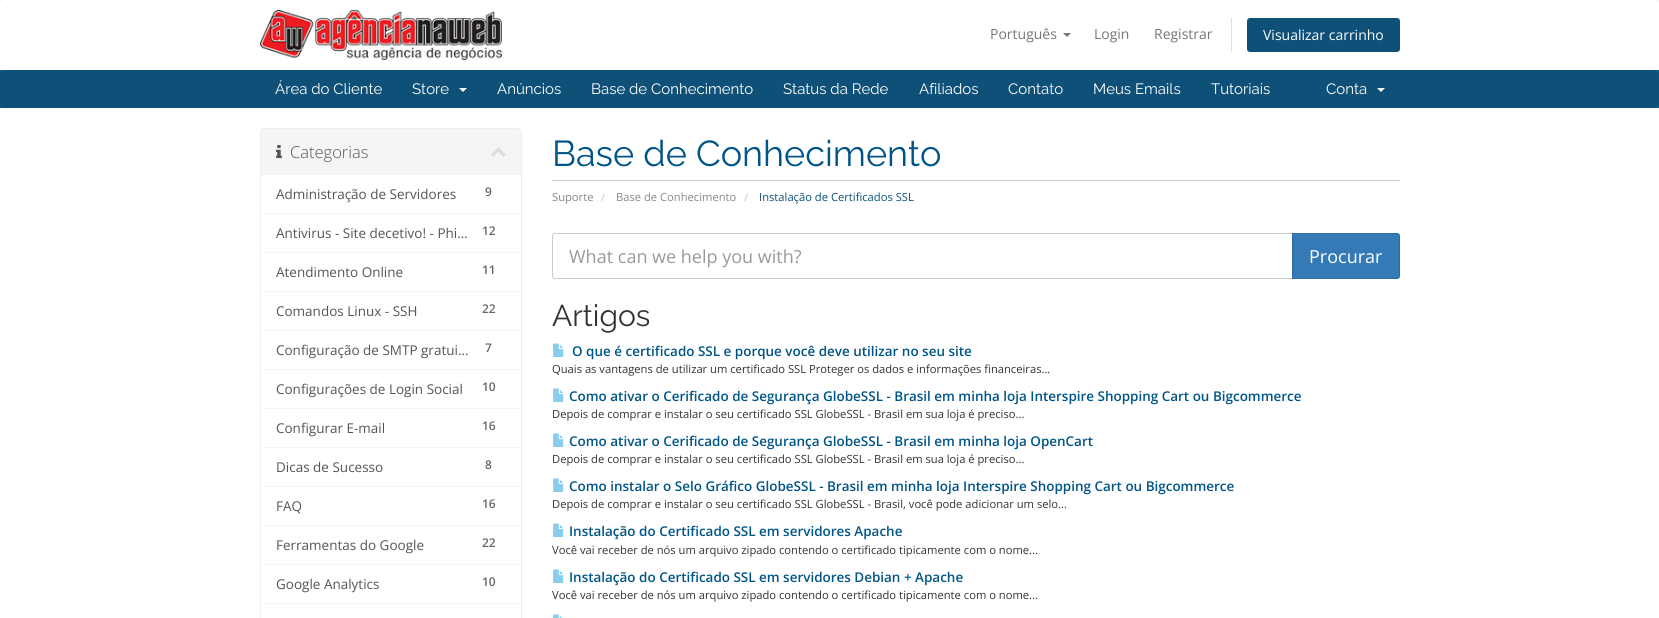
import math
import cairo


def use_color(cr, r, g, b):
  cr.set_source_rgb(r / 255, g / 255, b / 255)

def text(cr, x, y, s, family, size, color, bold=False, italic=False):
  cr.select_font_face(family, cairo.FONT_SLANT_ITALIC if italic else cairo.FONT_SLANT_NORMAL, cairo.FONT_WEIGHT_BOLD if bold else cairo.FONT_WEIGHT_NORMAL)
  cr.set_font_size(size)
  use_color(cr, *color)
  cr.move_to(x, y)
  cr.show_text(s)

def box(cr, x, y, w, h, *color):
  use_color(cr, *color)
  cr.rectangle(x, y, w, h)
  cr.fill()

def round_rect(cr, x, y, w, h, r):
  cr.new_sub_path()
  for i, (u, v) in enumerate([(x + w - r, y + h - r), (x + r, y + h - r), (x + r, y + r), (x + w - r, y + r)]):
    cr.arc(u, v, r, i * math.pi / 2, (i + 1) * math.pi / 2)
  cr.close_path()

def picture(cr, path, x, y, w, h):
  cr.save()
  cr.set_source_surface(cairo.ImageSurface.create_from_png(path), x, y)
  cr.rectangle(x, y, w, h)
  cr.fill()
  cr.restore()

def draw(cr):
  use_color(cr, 248, 248, 248)
  cr.paint()
  use_color(cr, 255, 255, 255)
  cr.new_path()
  cr.move_to(5, 0)
  cr.line_to(1654, 0)
  cr.curve_to(1657, 0, 1659, 2, 1659, 5)
  cr.line_to(1659, 70)
  cr.line_to(0, 70)
  cr.line_to(0, 5)
  cr.curve_to(0, 2, 2, 0, 5, 0)
  cr.close_path()
  cr.fill()
  picture(cr, "img_01.png", 260, 10, 242, 50)
  use_color(cr, 119, 119, 119)
  cr.new_path()
  cr.move_to(1063, 33)
  cr.line_to(1071, 33)
  cr.line_to(1067, 37)
  cr.close_path()
  cr.fill()
  box(cr, 1231, 18, 1, 34, 221, 221, 221)
  use_color(cr, 14, 80, 119)
  round_rect(cr, 1247, 18, 153, 34, 3)
  cr.fill()
  box(cr, 0, 70, 1659, 38, 0, 102, 135)
  use_color(cr, 14, 80, 119)
  round_rect(cr, 0, 70, 1659, 38, 4)
  cr.fill()
  use_color(cr, 255, 255, 255)
  cr.new_path()
  cr.move_to(459, 88)
  cr.line_to(467, 88)
  cr.line_to(463, 92)
  cr.close_path()
  cr.fill()
  cr.new_path()
  cr.move_to(1377, 88)
  cr.line_to(1385, 88)
  cr.line_to(1381, 92)
  cr.close_path()
  cr.fill()
  box(cr, 0, 108, 1659, 510, 255, 255, 255)
  round_rect(cr, 260.5, 128.5, 261, 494, 3.5)
  use_color(cr, 238, 238, 238)
  cr.set_line_width(1)
  cr.stroke()
  use_color(cr, 245, 245, 245)
  cr.new_path()
  cr.move_to(264, 129)
  cr.line_to(518, 129)
  cr.curve_to(519.5, 129, 521, 130.5, 521, 132)
  cr.line_to(521, 175)
  cr.line_to(261, 175)
  cr.line_to(261, 132)
  cr.curve_to(261, 130.5, 262.5, 129, 264, 129)
  cr.close_path()
  cr.fill()
  picture(cr, "img_02.png", 276, 145, 6, 13)
  picture(cr, "img_03.png", 491, 147, 15, 10)
  box(cr, 261, 213, 260, 1, 245, 245, 245)
  box(cr, 261, 252, 260, 1, 245, 245, 245)
  box(cr, 261, 291, 260, 1, 245, 245, 245)
  box(cr, 261, 330, 260, 1, 245, 245, 245)
  box(cr, 261, 369, 260, 1, 245, 245, 245)
  box(cr, 261, 408, 260, 1, 245, 245, 245)
  box(cr, 261, 447, 260, 1, 245, 245, 245)
  box(cr, 261, 486, 260, 1, 245, 245, 245)
  box(cr, 261, 525, 260, 1, 245, 245, 245)
  box(cr, 261, 564, 260, 1, 245, 245, 245)
  box(cr, 261, 603, 260, 1, 245, 245, 245)
  box(cr, 552, 180, 848, 1, 204, 204, 204)
  cr.new_path()
  cr.move_to(555, 233.5)
  cr.line_to(1292.5, 233.5)
  cr.line_to(1292.5, 278.5)
  cr.line_to(555, 278.5)
  cr.curve_to(553.5, 278.5, 552.5, 277.5, 552.5, 276)
  cr.line_to(552.5, 236)
  cr.curve_to(552.5, 234.5, 553.5, 233.5, 555, 233.5)
  cr.close_path()
  cr.stroke()
  use_color(cr, 51, 122, 183)
  cr.new_path()
  cr.move_to(1292.5, 233.5)
  cr.line_to(1397, 233.5)
  cr.curve_to(1398.5, 233.5, 1399.5, 234.5, 1399.5, 236)
  cr.line_to(1399.5, 276)
  cr.curve_to(1399.5, 277.5, 1398.5, 278.5, 1397, 278.5)
  cr.line_to(1292.5, 278.5)
  cr.close_path()
  cr.fill_preserve()
  use_color(cr, 46, 109, 164)
  cr.stroke()
  picture(cr, "img_04.png", 553, 343, 11, 14)
  picture(cr, "img_04.png", 553, 388, 11, 14)
  picture(cr, "img_04.png", 553, 433, 11, 14)
  picture(cr, "img_04.png", 553, 478, 11, 14)
  picture(cr, "img_04.png", 553, 523, 11, 14)
  picture(cr, "img_04.png", 553, 569, 11, 14)
  picture(cr, "img_05.png", 553, 614, 9, 4)
  text(cr, 990, 39, "Português", "Open Sans", 14, (119, 119, 119))
  text(cr, 1094, 39, "Login", "Open Sans", 14, (119, 119, 119))
  text(cr, 1154, 39, "Registrar", "Open Sans", 14, (119, 119, 119))
  text(cr, 1263, 40, "Visualizar carrinho", "Open Sans", 14, (255, 255, 255))
  text(cr, 275, 94, "Área do Cliente", "Raleway", 15, (255, 255, 255))
  text(cr, 412, 94, "Store", "Raleway", 15, (255, 255, 255))
  text(cr, 497, 94, "Anúncios", "Raleway", 15, (255, 255, 255))
  text(cr, 591, 94, "Base de Conhecimento", "Raleway", 15, (255, 255, 255))
  text(cr, 783, 94, "Status da Rede", "Raleway", 15, (255, 255, 255))
  text(cr, 919, 94, "Afiliados", "Raleway", 15, (255, 255, 255))
  text(cr, 1008, 94, "Contato", "Raleway", 15, (255, 255, 255))
  text(cr, 1093, 94, "Meus Emails", "Raleway", 15, (255, 255, 255))
  text(cr, 1211, 94, "Tutoriais", "Raleway", 15, (255, 255, 255))
  text(cr, 1326, 94, "Conta", "Raleway", 15, (255, 255, 255))
  text(cr, 290, 158, "Categorias", "Open Sans Light", 16.5, (85, 85, 85))
  text(cr, 276, 199, "Administração de Servidores", "Open Sans", 13.5, (85, 85, 85))
  text(cr, 485, 196, "9", "Open Sans SemiBold", 12, (102, 102, 102))
  text(cr, 276, 238, "Antivirus - Site decetivo! - Phi…", "Open Sans", 13.5, (85, 85, 85))
  text(cr, 482, 235, "12", "Open Sans SemiBold", 12, (102, 102, 102))
  text(cr, 276, 277, "Atendimento Online", "Open Sans", 13.5, (85, 85, 85))
  text(cr, 482, 274, "11", "Open Sans SemiBold", 12, (102, 102, 102))
  text(cr, 276, 316, "Comandos Linux - SSH", "Open Sans", 13.5, (85, 85, 85))
  text(cr, 482, 313, "22", "Open Sans SemiBold", 12, (102, 102, 102))
  text(cr, 276, 355, "Configuração de SMTP gratui…", "Open Sans", 13.5, (85, 85, 85))
  text(cr, 485, 352, "7", "Open Sans SemiBold", 12, (102, 102, 102))
  text(cr, 276, 394, "Configurações de Login Social", "Open Sans", 13.5, (85, 85, 85))
  text(cr, 482, 391, "10", "Open Sans SemiBold", 12, (102, 102, 102))
  text(cr, 276, 433, "Configurar E-mail", "Open Sans", 13.5, (85, 85, 85))
  text(cr, 482, 430, "16", "Open Sans SemiBold", 12, (102, 102, 102))
  text(cr, 276, 472, "Dicas de Sucesso", "Open Sans", 13.5, (85, 85, 85))
  text(cr, 485, 469, "8", "Open Sans SemiBold", 12, (102, 102, 102))
  text(cr, 276, 511, "FAQ", "Open Sans", 13.5, (85, 85, 85))
  text(cr, 482, 508, "16", "Open Sans SemiBold", 12, (102, 102, 102))
  text(cr, 276, 550, "Ferramentas do Google", "Open Sans", 13.5, (85, 85, 85))
  text(cr, 482, 547, "22", "Open Sans SemiBold", 12, (102, 102, 102))
  text(cr, 276, 589, "Google Analytics", "Open Sans", 13.5, (85, 85, 85))
  text(cr, 482, 586, "10", "Open Sans SemiBold", 12, (102, 102, 102))
  text(cr, 552, 166, "Base de Conhecimento", "Raleway", 36, (0, 85, 136))
  text(cr, 552, 201, "Suporte", "Open Sans", 11.2, (136, 136, 136))
  text(cr, 601, 201, "/", "Open Sans", 11.2, (204, 204, 204))
  text(cr, 616, 201, "Base de Conhecimento", "Open Sans", 11.2, (136, 136, 136))
  text(cr, 744, 201, "/", "Open Sans", 11.2, (204, 204, 204))
  text(cr, 759, 201, "Instalação de Certificados SSL", "Open Sans", 11.2, (14, 80, 119))
  text(cr, 569, 263, "What can we help you with?", "Open Sans", 18, (153, 153, 153))
  text(cr, 1309, 263, "Procurar", "Open Sans", 18, (255, 255, 255))
  text(cr, 552, 326, "Artigos", "Raleway", 30, (51, 51, 51))
  text(cr, 572, 356, "O que é certificado SSL e porque você deve utilizar no seu site", "Open Sans SemiBold", 13.45, (0, 85, 136))
  text(cr, 552, 373, "Quais as vantagens de utilizar um certificado SSL Proteger os dados e informações financeiras...", "Open Sans", 11.2, (51, 51, 51))
  text(cr, 569, 401, "Como ativar o Cerificado de Segurança GlobeSSL - Brasil em minha loja Interspire Shopping Cart ou Bigcommerce", "Open Sans SemiBold", 13.45, (0, 85, 136))
  text(cr, 552, 418, "Depois de comprar e instalar o seu certificado SSL GlobeSSL - Brasil em sua loja é preciso...", "Open Sans", 11.2, (51, 51, 51))
  text(cr, 569, 446, "Como ativar o Cerificado de Segurança GlobeSSL - Brasil em minha loja OpenCart", "Open Sans SemiBold", 13.45, (0, 85, 136))
  text(cr, 552, 463, "Depois de comprar e instalar o seu certificado SSL GlobeSSL - Brasil em sua loja é preciso...", "Open Sans", 11.2, (51, 51, 51))
  text(cr, 569, 491, "Como instalar o Selo Gráfico GlobeSSL - Brasil em minha loja Interspire Shopping Cart ou Bigcommerce", "Open Sans SemiBold", 13.45, (0, 85, 136))
  text(cr, 552, 508, "Depois de comprar e instalar o seu certificado SSL GlobeSSL - Brasil, você pode adicionar um selo...", "Open Sans", 11.2, (51, 51, 51))
  text(cr, 569, 536, "Instalação do Certificado SSL em servidores Apache", "Open Sans SemiBold", 13.45, (0, 85, 136))
  text(cr, 552, 554, "Você vai receber de nós um arquivo zipado contendo o certificado tipicamente com o nome...", "Open Sans", 11.2, (51, 51, 51))
  text(cr, 569, 582, "Instalação do Certificado SSL em servidores Debian + Apache", "Open Sans SemiBold", 13.45, (0, 85, 136))
  text(cr, 552, 599, "Você vai receber de nós um arquivo zipado contendo o certificado tipicamente com o nome...", "Open Sans", 11.2, (51, 51, 51))


surface = cairo.ImageSurface(cairo.FORMAT_RGB24, 1659, 618)
cr = cairo.Context(surface)
options = cairo.FontOptions()
options.set_hint_metrics(cairo.HINT_METRICS_OFF)
options.set_hint_style(cairo.HINT_STYLE_NONE)
cr.set_font_options(options)
cr.set_miter_limit(4)
draw(cr)
surface.write_to_png("out.png")
